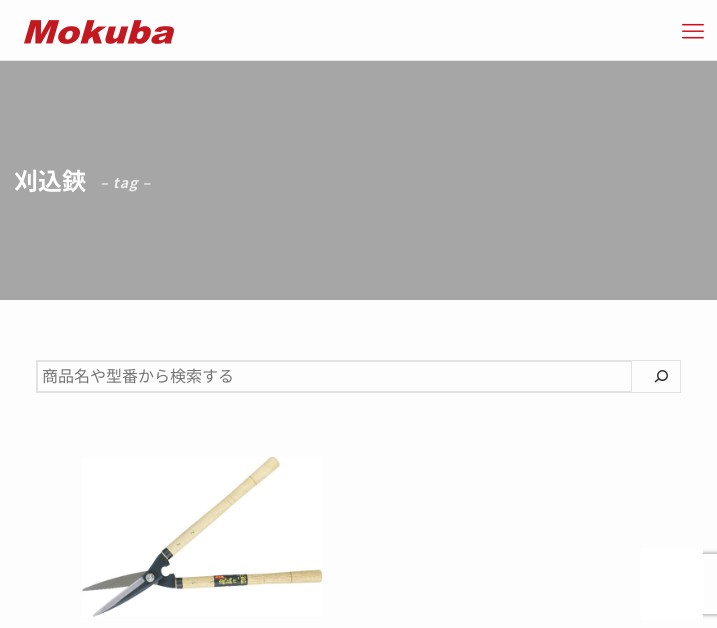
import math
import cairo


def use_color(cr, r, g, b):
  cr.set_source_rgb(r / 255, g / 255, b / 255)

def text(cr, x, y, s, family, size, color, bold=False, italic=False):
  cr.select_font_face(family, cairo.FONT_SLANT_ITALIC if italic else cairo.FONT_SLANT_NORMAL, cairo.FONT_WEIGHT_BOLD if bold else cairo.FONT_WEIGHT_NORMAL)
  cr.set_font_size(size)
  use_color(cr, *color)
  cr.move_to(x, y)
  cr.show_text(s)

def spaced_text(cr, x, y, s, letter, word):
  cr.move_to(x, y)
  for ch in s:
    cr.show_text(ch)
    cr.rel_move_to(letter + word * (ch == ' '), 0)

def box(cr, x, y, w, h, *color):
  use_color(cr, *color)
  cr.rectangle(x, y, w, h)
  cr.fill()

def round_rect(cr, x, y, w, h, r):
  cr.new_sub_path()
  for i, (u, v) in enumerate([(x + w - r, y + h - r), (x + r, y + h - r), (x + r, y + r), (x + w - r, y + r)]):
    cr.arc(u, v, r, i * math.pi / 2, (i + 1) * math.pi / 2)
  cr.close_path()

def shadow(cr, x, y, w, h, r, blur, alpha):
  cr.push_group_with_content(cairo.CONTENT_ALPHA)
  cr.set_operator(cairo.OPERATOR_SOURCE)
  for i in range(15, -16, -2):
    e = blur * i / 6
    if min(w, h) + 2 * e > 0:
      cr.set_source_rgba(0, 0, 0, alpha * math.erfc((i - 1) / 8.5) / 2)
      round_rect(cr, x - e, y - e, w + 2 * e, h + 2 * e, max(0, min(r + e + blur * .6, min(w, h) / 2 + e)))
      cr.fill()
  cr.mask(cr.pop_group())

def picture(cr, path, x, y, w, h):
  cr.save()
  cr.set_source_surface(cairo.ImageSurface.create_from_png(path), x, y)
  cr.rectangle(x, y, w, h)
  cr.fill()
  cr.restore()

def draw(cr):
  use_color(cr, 253, 253, 253)
  cr.paint()
  box(cr, 0, 60, 717, 1, 231, 231, 231)
  picture(cr, "img_01.png", 24, 20, 150, 24)
  picture(cr, "img_02.png", 682, 23, 22, 16)
  box(cr, 0, 61, 717, 239, 166, 166, 166)
  cr.save()
  cr.set_fill_rule(cairo.FILL_RULE_EVEN_ODD)
  cr.new_path()
  cr.move_to(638, 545)
  cr.line_to(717, 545)
  cr.line_to(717, 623)
  cr.line_to(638, 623)
  cr.close_path()
  cr.move_to(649, 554)
  cr.line_to(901, 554)
  cr.curve_to(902, 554, 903, 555, 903, 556)
  cr.line_to(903, 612)
  cr.curve_to(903, 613, 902, 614, 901, 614)
  cr.line_to(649, 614)
  cr.curve_to(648, 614, 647, 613, 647, 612)
  cr.line_to(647, 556)
  cr.curve_to(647, 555, 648, 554, 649, 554)
  cr.close_path()
  cr.clip()
  use_color(cr, 128, 128, 128)
  shadow(cr, 647, 554, 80, 60, 2, 2.5, 1)
  cr.restore()
  box(cr, 641, 548, 62, 72, 255, 255, 255)
  cr.rectangle(36.5, 360.5, 644, 32)
  use_color(cr, 227, 227, 227)
  cr.set_line_width(1)
  cr.stroke()
  cr.rectangle(37.5, 361.5, 594, 30)
  cr.stroke()
  picture(cr, "img_03.png", 654, 370, 14, 13)
  picture(cr, "img_04.png", 82, 457, 241, 160)
  text(cr, 14, 190, "刈込鋏", "Noto Sans JP", 24, (255, 255, 255), bold=True)
  cr.select_font_face("Noto Sans JP", cairo.FONT_SLANT_ITALIC, cairo.FONT_WEIGHT_BOLD)
  cr.set_font_size(14)
  use_color(cr, 237, 237, 237)
  spaced_text(cr, 100, 188, "– tag –", 1, 0)
  text(cr, 42, 382, "商品名や型番から検索する", "Noto Sans JP", 16, (117, 117, 117))


surface = cairo.ImageSurface(cairo.FORMAT_RGB24, 717, 628)
cr = cairo.Context(surface)
options = cairo.FontOptions()
options.set_hint_metrics(cairo.HINT_METRICS_OFF)
options.set_hint_style(cairo.HINT_STYLE_NONE)
cr.set_font_options(options)
cr.set_miter_limit(4)
draw(cr)
surface.write_to_png("out.png")
